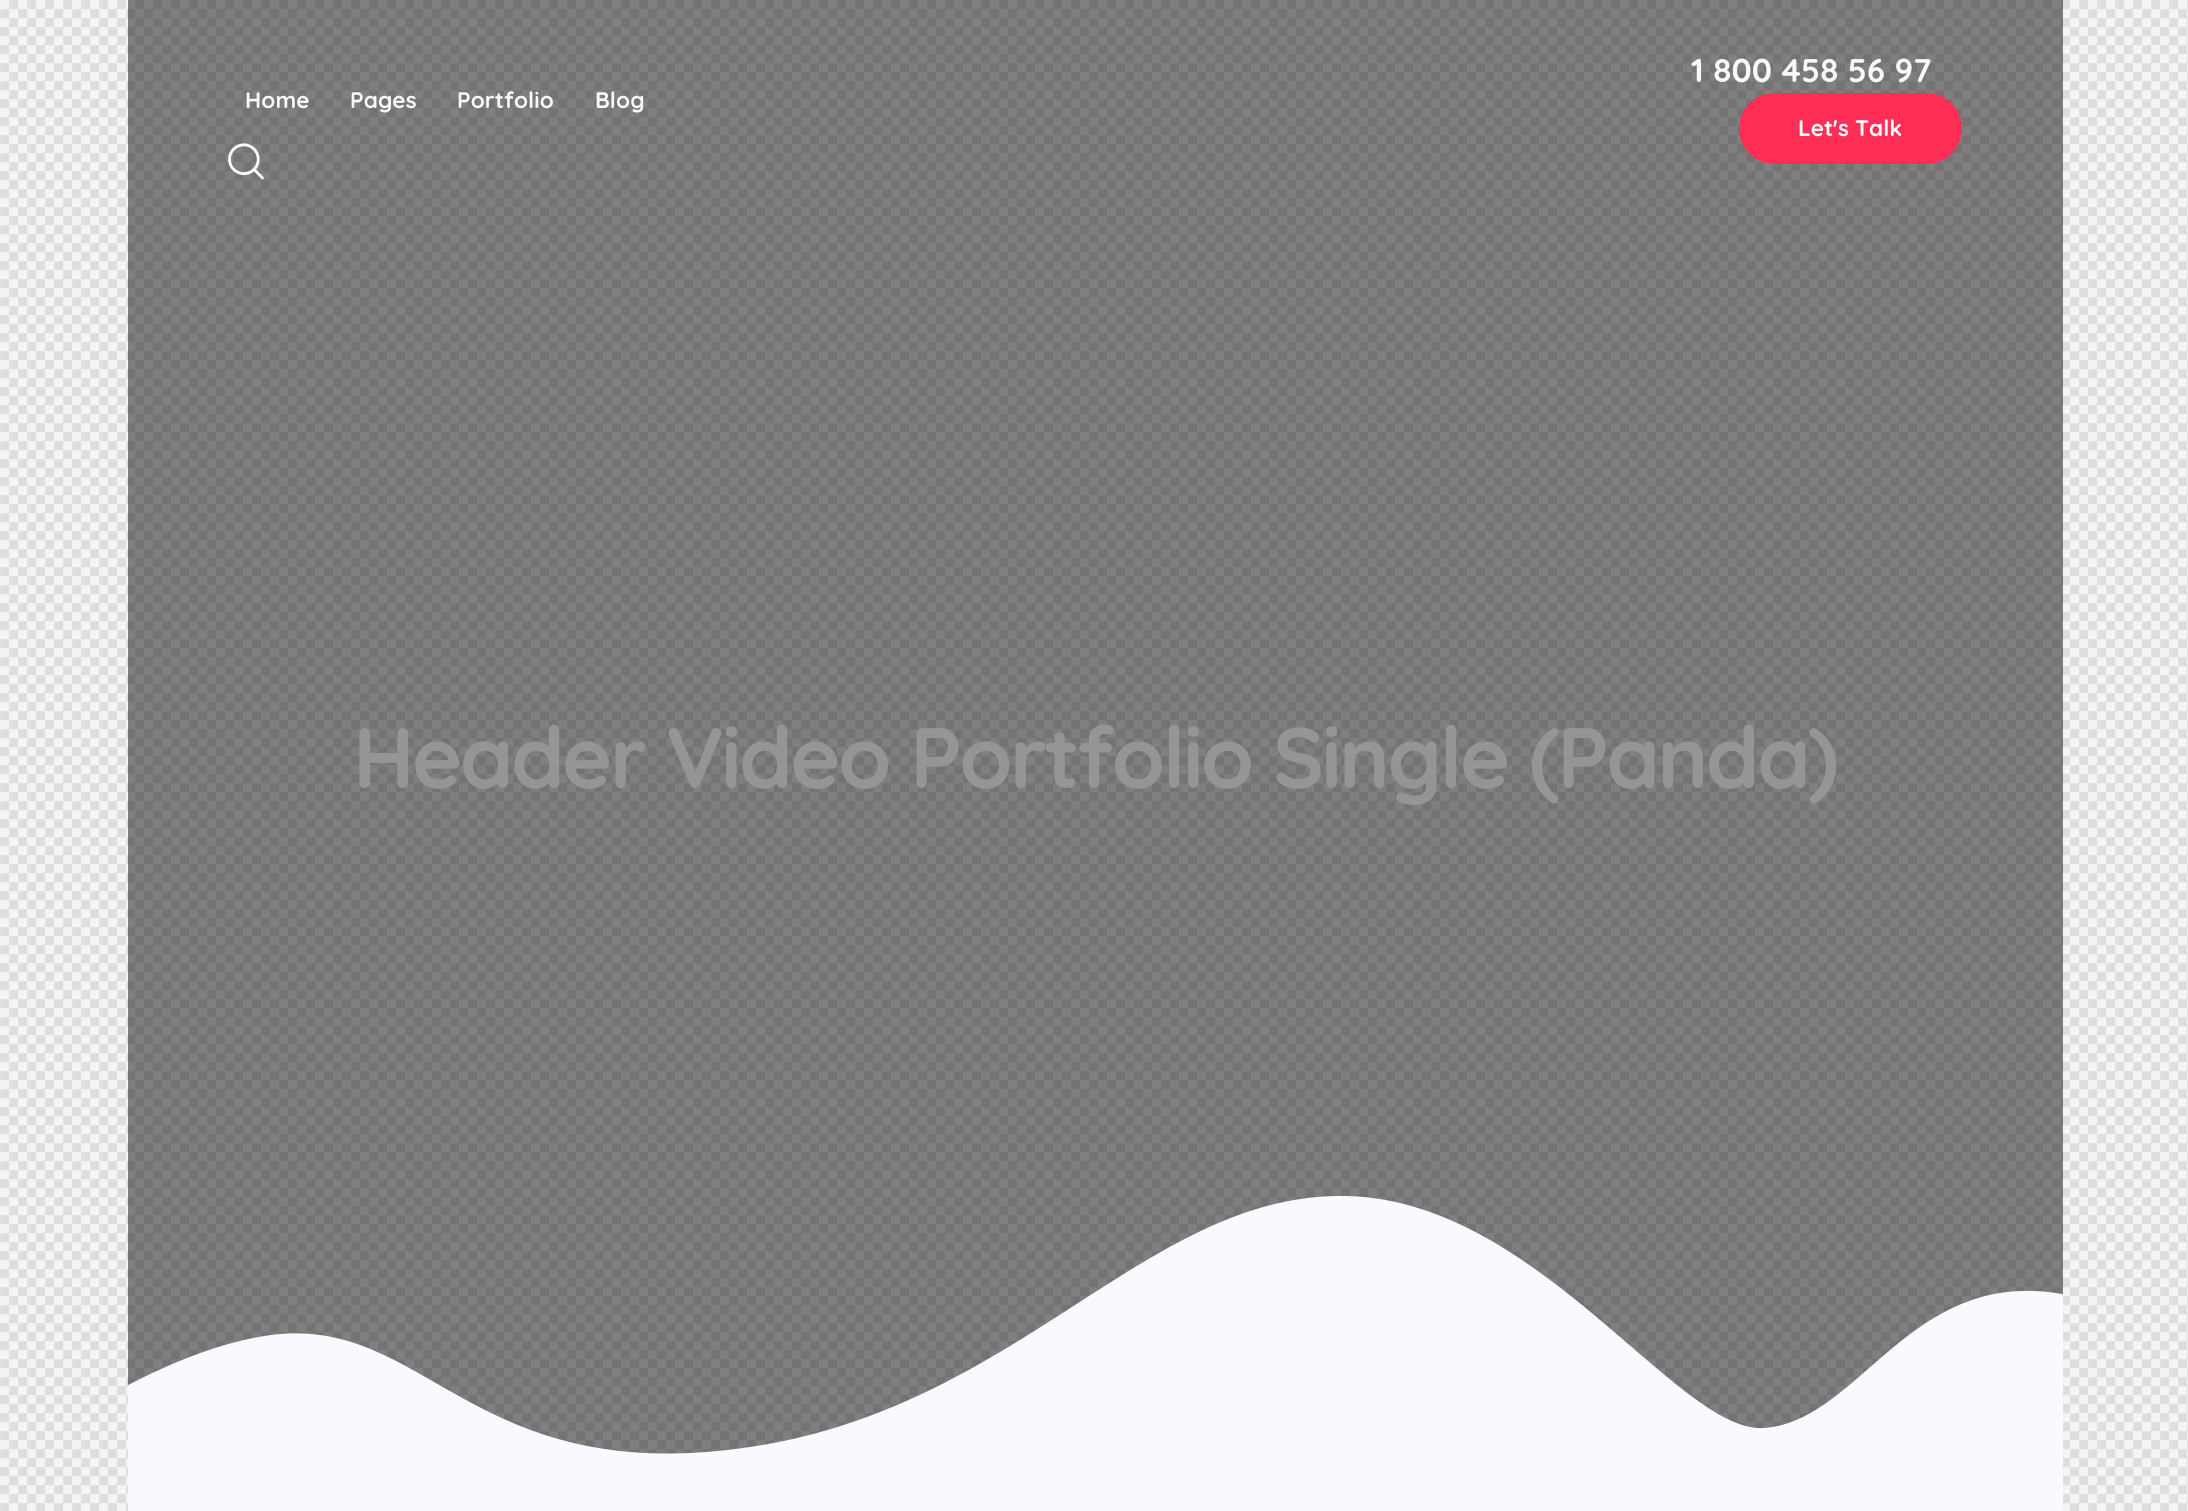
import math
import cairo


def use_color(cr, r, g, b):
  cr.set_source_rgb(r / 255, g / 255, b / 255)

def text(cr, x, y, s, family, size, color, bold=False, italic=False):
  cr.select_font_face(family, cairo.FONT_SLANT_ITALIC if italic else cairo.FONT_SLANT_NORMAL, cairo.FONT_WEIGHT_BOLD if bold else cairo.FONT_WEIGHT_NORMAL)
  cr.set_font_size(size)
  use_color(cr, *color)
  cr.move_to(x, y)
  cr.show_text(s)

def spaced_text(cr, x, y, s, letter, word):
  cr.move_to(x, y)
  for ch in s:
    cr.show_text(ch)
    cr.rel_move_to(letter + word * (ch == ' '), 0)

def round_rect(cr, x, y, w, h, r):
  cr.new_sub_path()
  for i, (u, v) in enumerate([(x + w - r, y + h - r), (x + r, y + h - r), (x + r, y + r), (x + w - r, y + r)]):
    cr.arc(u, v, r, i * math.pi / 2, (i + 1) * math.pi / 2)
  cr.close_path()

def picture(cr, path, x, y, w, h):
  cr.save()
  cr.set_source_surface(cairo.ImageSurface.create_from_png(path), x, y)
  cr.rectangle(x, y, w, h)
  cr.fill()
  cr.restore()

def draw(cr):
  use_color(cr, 255, 255, 255)
  cr.paint()
  picture(cr, "img_01.png", 0, 0, 2188, 1511)
  cr.set_source_rgba(0, 0, 0, 0.13)
  cr.rectangle(128, 0, 1935, 1454)
  cr.fill()
  cr.select_font_face("Quicksand", cairo.FONT_SLANT_NORMAL, cairo.FONT_WEIGHT_BOLD)
  cr.set_font_size(85.5)
  use_color(cr, 249, 249, 249)
  spaced_text(cr, 353, 788, "Header Video Portfolio Single (Panda)", -2.55, 0)
  cr.set_source_rgba(0, 0, 0, 0.4)
  cr.rectangle(128, 0, 1935, 1454)
  cr.fill()
  picture(cr, "img_02.png", 228, 143, 36, 37)
  cr.set_font_size(22.5)
  use_color(cr, 249, 249, 249)
  spaced_text(cr, 245, 108, "Home", 0.1, 0)
  spaced_text(cr, 350, 108, "Pages", 0.1, 0)
  spaced_text(cr, 457, 108, "Portfolio", 0.1, 0)
  spaced_text(cr, 595, 108, "Blog", 0.1, 0)
  use_color(cr, 255, 46, 87)
  round_rect(cr, 1739, 93, 223, 71, 35.5)
  cr.fill()
  text(cr, 1798, 136, "Let's Talk", "Quicksand", 22.5, (255, 255, 255), bold=True)
  cr.set_font_size(33)
  use_color(cr, 249, 249, 249)
  spaced_text(cr, 1691, 82, "1 800 458 56 97", 0.1, 0)
  cr.save()
  cr.rectangle(128, 1196, 1935, 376)
  cr.clip()
  use_color(cr, 249, 250, 255)
  cr.new_path()
  cr.move_to(-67, 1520)
  cr.curve_to(-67, 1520, 116, 1356, 271, 1335)
  cr.curve_to(426, 1315, 470, 1486, 743, 1448)
  cr.curve_to(1015, 1411, 1142, 1198, 1338, 1196)
  cr.curve_to(1534, 1193, 1677, 1434, 1764, 1428)
  cr.curve_to(1851, 1422, 1900, 1295, 2021, 1291)
  cr.curve_to(2142, 1286, 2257, 1413, 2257, 1413)
  cr.line_to(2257, 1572)
  cr.line_to(-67, 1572)
  cr.close_path()
  cr.fill()
  cr.restore()


surface = cairo.ImageSurface(cairo.FORMAT_RGB24, 2188, 1511)
cr = cairo.Context(surface)
options = cairo.FontOptions()
options.set_hint_metrics(cairo.HINT_METRICS_OFF)
options.set_hint_style(cairo.HINT_STYLE_NONE)
cr.set_font_options(options)
cr.set_miter_limit(4)
draw(cr)
surface.write_to_png("out.png")
